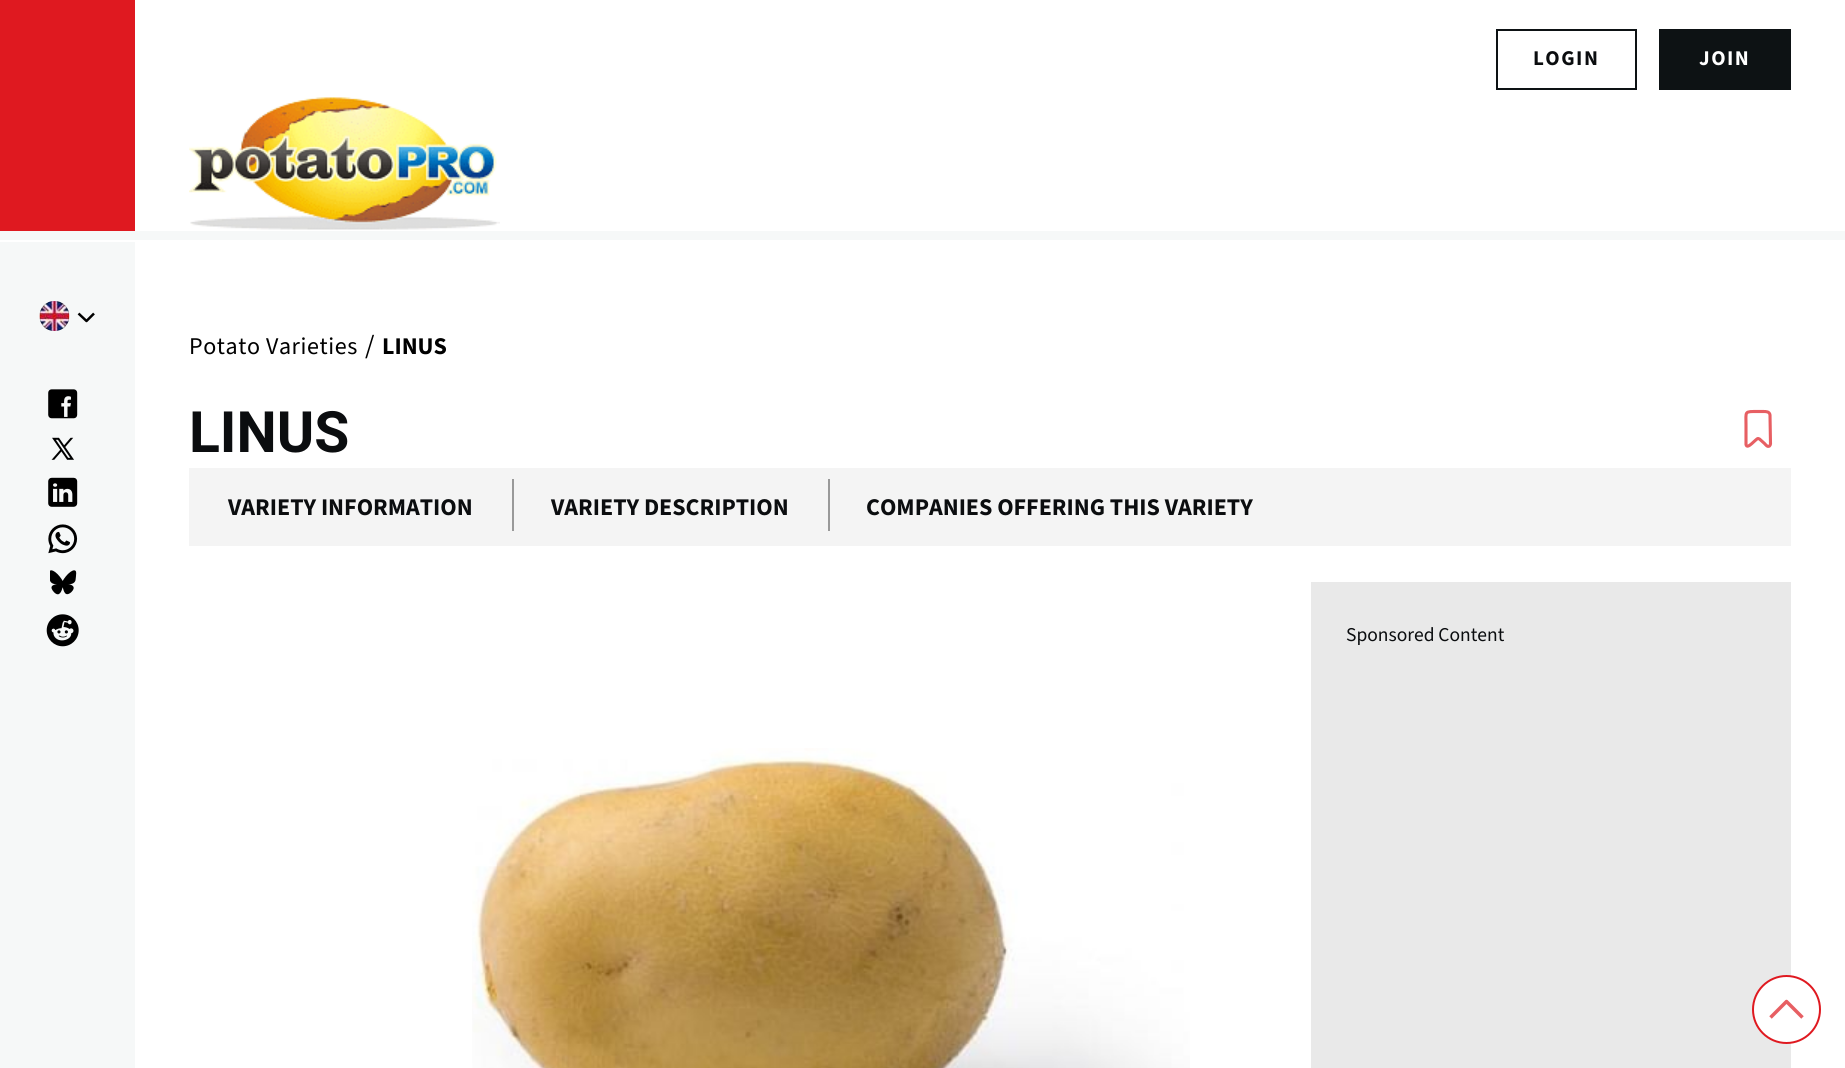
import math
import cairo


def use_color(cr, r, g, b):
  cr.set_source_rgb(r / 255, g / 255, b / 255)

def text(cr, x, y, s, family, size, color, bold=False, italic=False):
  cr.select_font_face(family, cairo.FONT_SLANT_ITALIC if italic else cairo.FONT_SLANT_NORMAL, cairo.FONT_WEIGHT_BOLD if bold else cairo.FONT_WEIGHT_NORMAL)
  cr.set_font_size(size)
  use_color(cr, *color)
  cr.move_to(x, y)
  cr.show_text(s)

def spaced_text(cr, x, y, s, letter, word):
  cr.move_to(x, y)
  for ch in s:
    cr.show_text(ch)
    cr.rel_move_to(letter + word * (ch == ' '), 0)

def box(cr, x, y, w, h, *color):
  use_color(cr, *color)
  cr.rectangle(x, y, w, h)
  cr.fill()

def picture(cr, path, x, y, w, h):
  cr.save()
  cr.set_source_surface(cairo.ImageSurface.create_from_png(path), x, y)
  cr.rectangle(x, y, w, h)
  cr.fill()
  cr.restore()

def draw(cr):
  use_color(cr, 246, 248, 248)
  cr.paint()
  box(cr, 0, 240, 1845, 828, 255, 255, 255)
  box(cr, 0, 0, 135, 231, 223, 25, 32)
  box(cr, 135, 0, 1710, 231, 255, 255, 255)
  cr.rectangle(1497, 30, 139, 59)
  use_color(cr, 13, 18, 20)
  cr.stroke()
  box(cr, 1659, 29, 132, 61, 13, 18, 20)
  picture(cr, "img_01.png", 189, 97, 311, 133)
  box(cr, 0, 242, 135, 826, 246, 248, 248)
  picture(cr, "img_02.png", 39, 301, 31, 30)
  cr.new_path()
  cr.move_to(78.5, 313.5)
  cr.line_to(86.5, 321)
  cr.line_to(94, 313.5)
  use_color(cr, 0, 0, 0)
  cr.set_line_width(2.5)
  cr.set_line_join(cairo.LINE_JOIN_ROUND)
  cr.stroke()
  picture(cr, "img_03.png", 48, 389, 30, 30)
  picture(cr, "img_04.png", 51, 437, 23, 23)
  picture(cr, "img_05.png", 48, 477, 30, 30)
  picture(cr, "img_06.png", 48, 524, 30, 30)
  picture(cr, "img_07.png", 50, 570, 27, 25)
  picture(cr, "img_08.png", 46, 614, 33, 33)
  cr.new_path()
  cr.move_to(1770.5, 444)
  cr.line_to(1770, 415)
  cr.curve_to(1769.5, 411.5, 1766, 411.5, 1763.5, 411.5)
  cr.line_to(1758, 411.5)
  cr.curve_to(1744, 411.5, 1746, 411, 1746, 425)
  cr.line_to(1746, 444.5)
  cr.curve_to(1747, 450.5, 1756, 438.5, 1758, 438.5)
  cr.line_to(1759.5, 439)
  cr.line_to(1764.5, 443.5)
  cr.curve_to(1765.5, 444.5, 1767.5, 447.5, 1769.5, 446)
  cr.curve_to(1770, 445.5, 1770.5, 444.5, 1770.5, 444)
  cr.close_path()
  use_color(cr, 231, 95, 99)
  cr.set_line_width(3.1)
  cr.set_line_cap(cairo.LINE_CAP_ROUND)
  cr.stroke()
  box(cr, 189, 468, 1602, 78, 244, 244, 244)
  box(cr, 512, 479, 2, 52, 153, 153, 153)
  box(cr, 828, 479, 2, 52, 153, 153, 153)
  box(cr, 1311, 582, 480, 486, 233, 233, 233)
  picture(cr, "img_09.png", 472, 748, 718, 320)
  use_color(cr, 255, 255, 255)
  cr.arc(1786.5, 1009.5, 33.5, 0, 2 * math.pi)
  cr.fill_preserve()
  use_color(cr, 223, 25, 32)
  cr.set_line_width(2)
  cr.set_line_cap(cairo.LINE_CAP_BUTT)
  cr.set_line_join(cairo.LINE_JOIN_MITER)
  cr.stroke()
  cr.new_path()
  cr.move_to(1770.5, 1017.5)
  cr.line_to(1786.5, 1001.5)
  cr.line_to(1802.5, 1017.5)
  use_color(cr, 231, 95, 99)
  cr.set_line_width(3.5)
  cr.set_line_join(cairo.LINE_JOIN_ROUND)
  cr.stroke()
  cr.select_font_face("Source Sans 3 ExtraLight")
  cr.set_font_size(21)
  use_color(cr, 11, 13, 15)
  spaced_text(cr, 1533, 65, "LOGIN", 1.5, 0)
  use_color(cr, 255, 255, 255)
  spaced_text(cr, 1699, 65, "JOIN", 1.5, 0)
  cr.select_font_face("Source Sans 3")
  cr.set_font_size(24)
  use_color(cr, 0, 0, 0)
  spaced_text(cr, 189, 354, "Potato Varieties", 0.6, 0)
  text(cr, 365, 354, "/", "Source Sans 3", 27, (0, 0, 0))
  text(cr, 382, 354, "LINUS", "Source Sans 3 ExtraLight", 24, (0, 0, 0))
  text(cr, 189, 452, "LINUS", "Roboto", 57, (11, 13, 15), bold=True)
  text(cr, 228, 515, "VARIETY INFORMATION", "Source Sans 3 ExtraLight", 24, (11, 13, 15))
  text(cr, 551, 515, "VARIETY DESCRIPTION", "Source Sans 3 ExtraLight", 24, (11, 13, 15))
  text(cr, 866, 515, "COMPANIES OFFERING THIS VARIETY", "Source Sans 3 ExtraLight", 24, (11, 13, 15))
  text(cr, 1346, 641, "Sponsored Content", "Source Sans 3", 19.5, (11, 13, 15))


surface = cairo.ImageSurface(cairo.FORMAT_RGB24, 1845, 1068)
cr = cairo.Context(surface)
options = cairo.FontOptions()
options.set_hint_metrics(cairo.HINT_METRICS_OFF)
options.set_hint_style(cairo.HINT_STYLE_NONE)
cr.set_font_options(options)
cr.set_miter_limit(4)
draw(cr)
surface.write_to_png("out.png")
